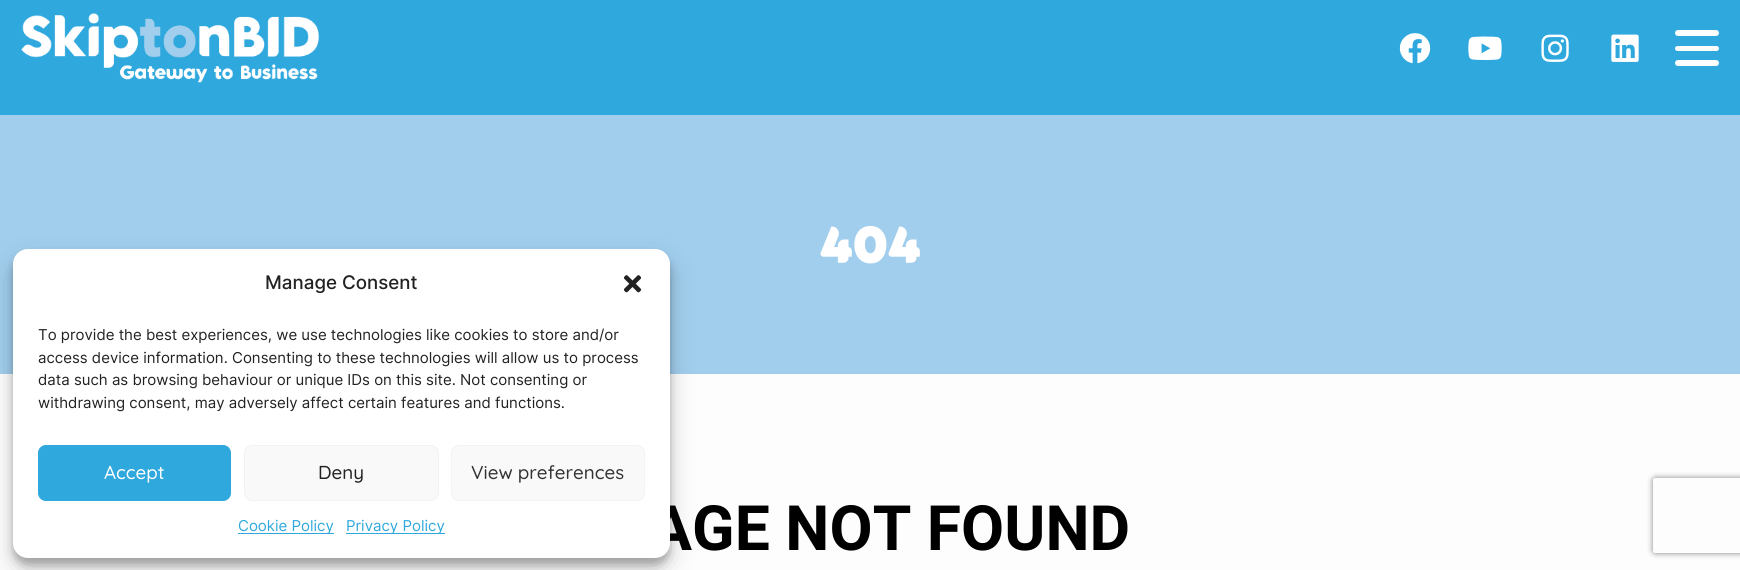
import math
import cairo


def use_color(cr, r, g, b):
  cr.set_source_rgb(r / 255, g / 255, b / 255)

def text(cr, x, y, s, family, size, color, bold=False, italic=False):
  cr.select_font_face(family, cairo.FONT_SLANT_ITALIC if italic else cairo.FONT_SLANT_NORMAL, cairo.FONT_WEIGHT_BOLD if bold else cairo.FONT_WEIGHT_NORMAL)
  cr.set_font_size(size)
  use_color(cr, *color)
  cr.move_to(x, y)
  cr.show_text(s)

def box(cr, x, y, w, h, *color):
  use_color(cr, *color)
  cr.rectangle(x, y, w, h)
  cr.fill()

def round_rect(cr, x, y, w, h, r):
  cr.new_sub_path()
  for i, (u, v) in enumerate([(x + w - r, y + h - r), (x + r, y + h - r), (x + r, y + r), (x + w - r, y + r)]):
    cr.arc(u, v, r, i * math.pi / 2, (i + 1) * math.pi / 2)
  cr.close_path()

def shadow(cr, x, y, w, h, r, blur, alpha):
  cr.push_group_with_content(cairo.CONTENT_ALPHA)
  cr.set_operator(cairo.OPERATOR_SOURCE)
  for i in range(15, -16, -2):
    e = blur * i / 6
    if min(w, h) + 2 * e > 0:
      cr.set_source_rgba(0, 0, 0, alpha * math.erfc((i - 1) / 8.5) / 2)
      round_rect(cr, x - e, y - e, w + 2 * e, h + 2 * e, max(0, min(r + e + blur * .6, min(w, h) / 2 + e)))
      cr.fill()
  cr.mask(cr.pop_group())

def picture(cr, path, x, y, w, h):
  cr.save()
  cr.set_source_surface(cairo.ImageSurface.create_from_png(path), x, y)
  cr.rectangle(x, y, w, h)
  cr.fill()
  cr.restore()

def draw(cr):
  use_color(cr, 253, 253, 253)
  cr.paint()
  box(cr, 0, 115, 1740, 259, 161, 206, 237)
  use_color(cr, 0, 0, 0)
  shadow(cr, 13, 256, 657, 309, 15, 4, 0.23)
  shadow(cr, 13, 261, 657, 309, 15, 12.5, 0.19)
  box(cr, 0, 0, 1740, 115, 47, 168, 221)
  picture(cr, "img_02.png", 21, 13, 298, 70)
  picture(cr, "img_03.png", 1399, 33, 32, 31)
  picture(cr, "img_04.png", 1468, 36, 34, 24)
  picture(cr, "img_05.png", 1541, 34, 28, 28)
  picture(cr, "img_06.png", 1611, 34, 28, 28)
  use_color(cr, 253, 253, 253)
  round_rect(cr, 1675, 30, 44, 6, 3)
  cr.fill()
  round_rect(cr, 1675, 46, 44, 5, 2.5)
  cr.fill()
  round_rect(cr, 1675, 60, 44, 6, 3)
  cr.fill()
  cr.save()
  cr.set_fill_rule(cairo.FILL_RULE_EVEN_ODD)
  cr.new_path()
  cr.move_to(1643, 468)
  cr.line_to(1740, 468)
  cr.line_to(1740, 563)
  cr.line_to(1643, 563)
  cr.close_path()
  cr.move_to(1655.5, 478)
  cr.line_to(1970.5, 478)
  cr.curve_to(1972, 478, 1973, 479, 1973, 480.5)
  cr.line_to(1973, 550.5)
  cr.curve_to(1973, 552, 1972, 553, 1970.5, 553)
  cr.line_to(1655.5, 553)
  cr.curve_to(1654, 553, 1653, 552, 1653, 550.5)
  cr.line_to(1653, 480.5)
  cr.curve_to(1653, 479, 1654, 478, 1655.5, 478)
  cr.close_path()
  cr.clip()
  use_color(cr, 128, 128, 128)
  shadow(cr, 1653, 478, 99, 75, 2.5, 3, 1)
  cr.restore()
  text(cr, 819, 263, "404", "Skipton", 50, (255, 255, 255), bold=True)
  text(cr, 650, 550, "AGE NOT FOUND", "Roboto", 62.5, (0, 0, 0), bold=True)
  use_color(cr, 255, 255, 255)
  round_rect(cr, 13, 249, 657, 309, 15)
  cr.fill()
  use_color(cr, 249, 249, 249)
  round_rect(cr, 451.5, 445.5, 193, 55, 7.5)
  cr.fill_preserve()
  use_color(cr, 242, 242, 242)
  cr.set_line_width(1)
  cr.stroke()
  text(cr, 471, 479, "View preferences", "Quicksand Medium", 18.75, (51, 51, 51))
  use_color(cr, 249, 249, 249)
  round_rect(cr, 244.5, 445.5, 194, 55, 7.5)
  cr.fill_preserve()
  use_color(cr, 242, 242, 242)
  cr.stroke()
  text(cr, 318, 479, "Deny", "Quicksand Medium", 18.75, (34, 34, 34))
  use_color(cr, 47, 168, 221)
  round_rect(cr, 38.5, 445.5, 192, 55, 7.5)
  cr.fill_preserve()
  cr.stroke()
  text(cr, 104, 479, "Accept", "Quicksand Medium", 18.75, (255, 255, 255))
  text(cr, 38, 408, "withdrawing consent, may adversely affect certain features and functions.", "Inter", 15, (34, 34, 34))
  text(cr, 38, 385, "data such as browsing behaviour or unique IDs on this site. Not consenting or", "Inter", 15, (34, 34, 34))
  text(cr, 38, 363, "access device information. Consenting to these technologies will allow us to process", "Inter", 15, (34, 34, 34))
  text(cr, 38, 340, "To provide the best experiences, we use technologies like cookies to store and/or", "Inter", 15, (34, 34, 34))
  picture(cr, "img_01.png", 623, 275, 19, 18)
  box(cr, 346, 533, 99, 1, 47, 168, 221)
  text(cr, 346, 531, "Privacy Policy", "Inter", 15, (47, 168, 221))
  box(cr, 238, 533, 96, 1, 47, 168, 221)
  text(cr, 238, 531, "Cookie Policy", "Inter", 15, (47, 168, 221))
  text(cr, 265, 289, "Manage Consent", "Inter Medium", 18.75, (34, 34, 34))


surface = cairo.ImageSurface(cairo.FORMAT_RGB24, 1740, 570)
cr = cairo.Context(surface)
options = cairo.FontOptions()
options.set_hint_metrics(cairo.HINT_METRICS_OFF)
options.set_hint_style(cairo.HINT_STYLE_NONE)
cr.set_font_options(options)
cr.set_miter_limit(4)
draw(cr)
surface.write_to_png("out.png")
